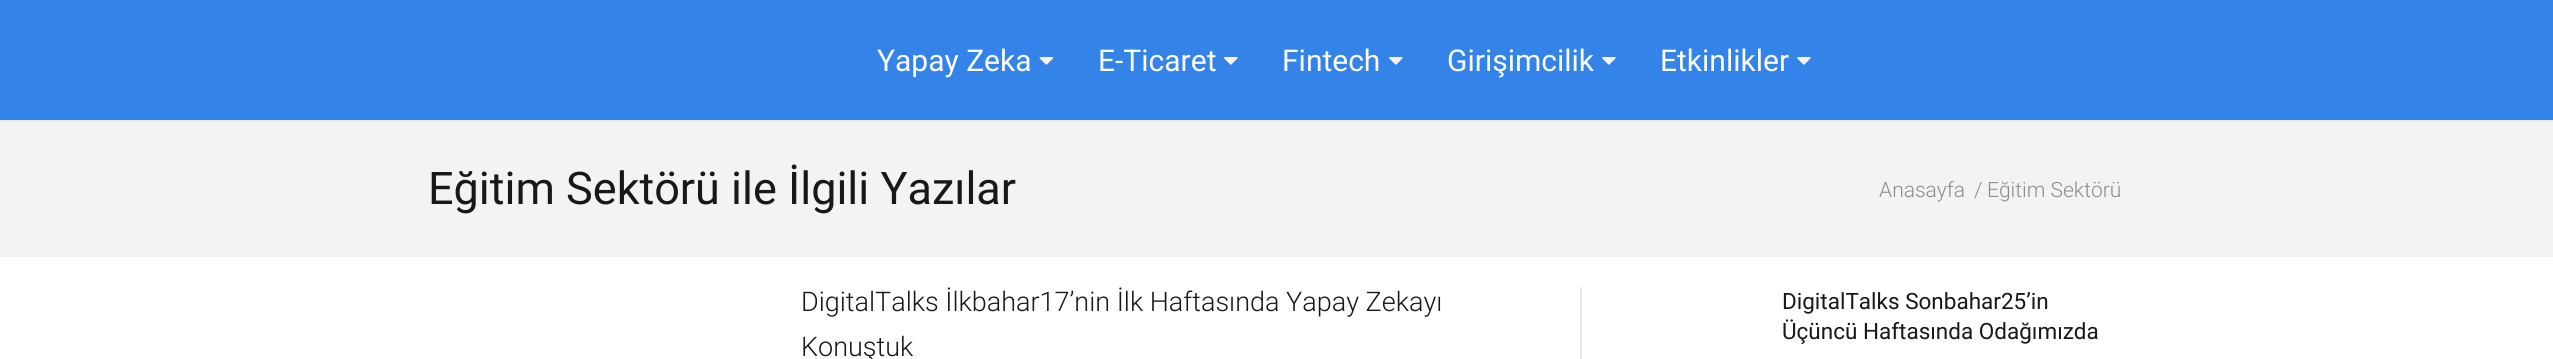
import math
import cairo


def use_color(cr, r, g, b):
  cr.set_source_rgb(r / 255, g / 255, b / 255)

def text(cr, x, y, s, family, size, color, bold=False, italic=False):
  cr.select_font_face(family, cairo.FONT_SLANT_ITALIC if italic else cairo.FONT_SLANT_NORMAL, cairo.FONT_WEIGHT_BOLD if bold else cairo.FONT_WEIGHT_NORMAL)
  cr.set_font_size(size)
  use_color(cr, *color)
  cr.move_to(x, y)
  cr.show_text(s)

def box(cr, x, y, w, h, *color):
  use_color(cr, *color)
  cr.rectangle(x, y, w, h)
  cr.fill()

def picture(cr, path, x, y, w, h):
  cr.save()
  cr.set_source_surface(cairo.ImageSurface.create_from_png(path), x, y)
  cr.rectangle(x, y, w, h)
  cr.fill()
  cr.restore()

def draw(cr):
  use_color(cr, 255, 255, 255)
  cr.paint()
  box(cr, 0, 0, 2553, 120, 52, 131, 232)
  box(cr, 0, 120, 2553, 2, 234, 234, 234)
  picture(cr, "img_01.png", 1039, 57, 15, 8)
  picture(cr, "img_02.png", 1224, 57, 14, 8)
  picture(cr, "img_02.png", 1389, 57, 14, 8)
  picture(cr, "img_02.png", 1602, 57, 14, 8)
  picture(cr, "img_02.png", 1797, 57, 14, 8)
  box(cr, 0, 122, 2553, 135, 243, 243, 243)
  box(cr, 1580, 287, 2, 72, 234, 234, 234)
  text(cr, 877, 71, "Yapay Zeka", "Roboto", 30, (252, 252, 252))
  text(cr, 1098, 71, "E-Ticaret", "Roboto", 30, (252, 252, 252))
  text(cr, 1282, 71, "Fintech", "Roboto", 30, (252, 252, 252))
  text(cr, 1447, 71, "Girişimcilik", "Roboto", 30, (252, 252, 252))
  text(cr, 1660, 71, "Etkinlikler", "Roboto", 30, (252, 252, 252))
  text(cr, 428, 204, "Eğitim Sektörü ile İlgili Yazılar", "Roboto", 45, (24, 24, 24))
  text(cr, 1879, 197, "Anasayfa", "Roboto Light", 21, (139, 140, 142))
  text(cr, 1974, 197, "/", "Roboto Light", 21, (139, 140, 142))
  text(cr, 1987, 197, "Eğitim Sektörü", "Roboto Light", 21, (139, 140, 142))
  text(cr, 801, 311, "DigitalTalks İlkbahar17’nin İlk Haftasında Yapay Zekayı", "Roboto Light", 27, (24, 24, 24))
  text(cr, 801, 356, "Konuştuk", "Roboto Light", 27, (24, 24, 24))
  text(cr, 1782, 309, "DigitalTalks Sonbahar25’in", "Roboto", 22.5, (24, 24, 24))
  text(cr, 1782, 339, "Üçüncü Haftasında Odağımızda", "Roboto", 22.5, (24, 24, 24))


surface = cairo.ImageSurface(cairo.FORMAT_RGB24, 2553, 359)
cr = cairo.Context(surface)
options = cairo.FontOptions()
options.set_hint_metrics(cairo.HINT_METRICS_OFF)
options.set_hint_style(cairo.HINT_STYLE_NONE)
cr.set_font_options(options)
cr.set_miter_limit(4)
draw(cr)
surface.write_to_png("out.png")
